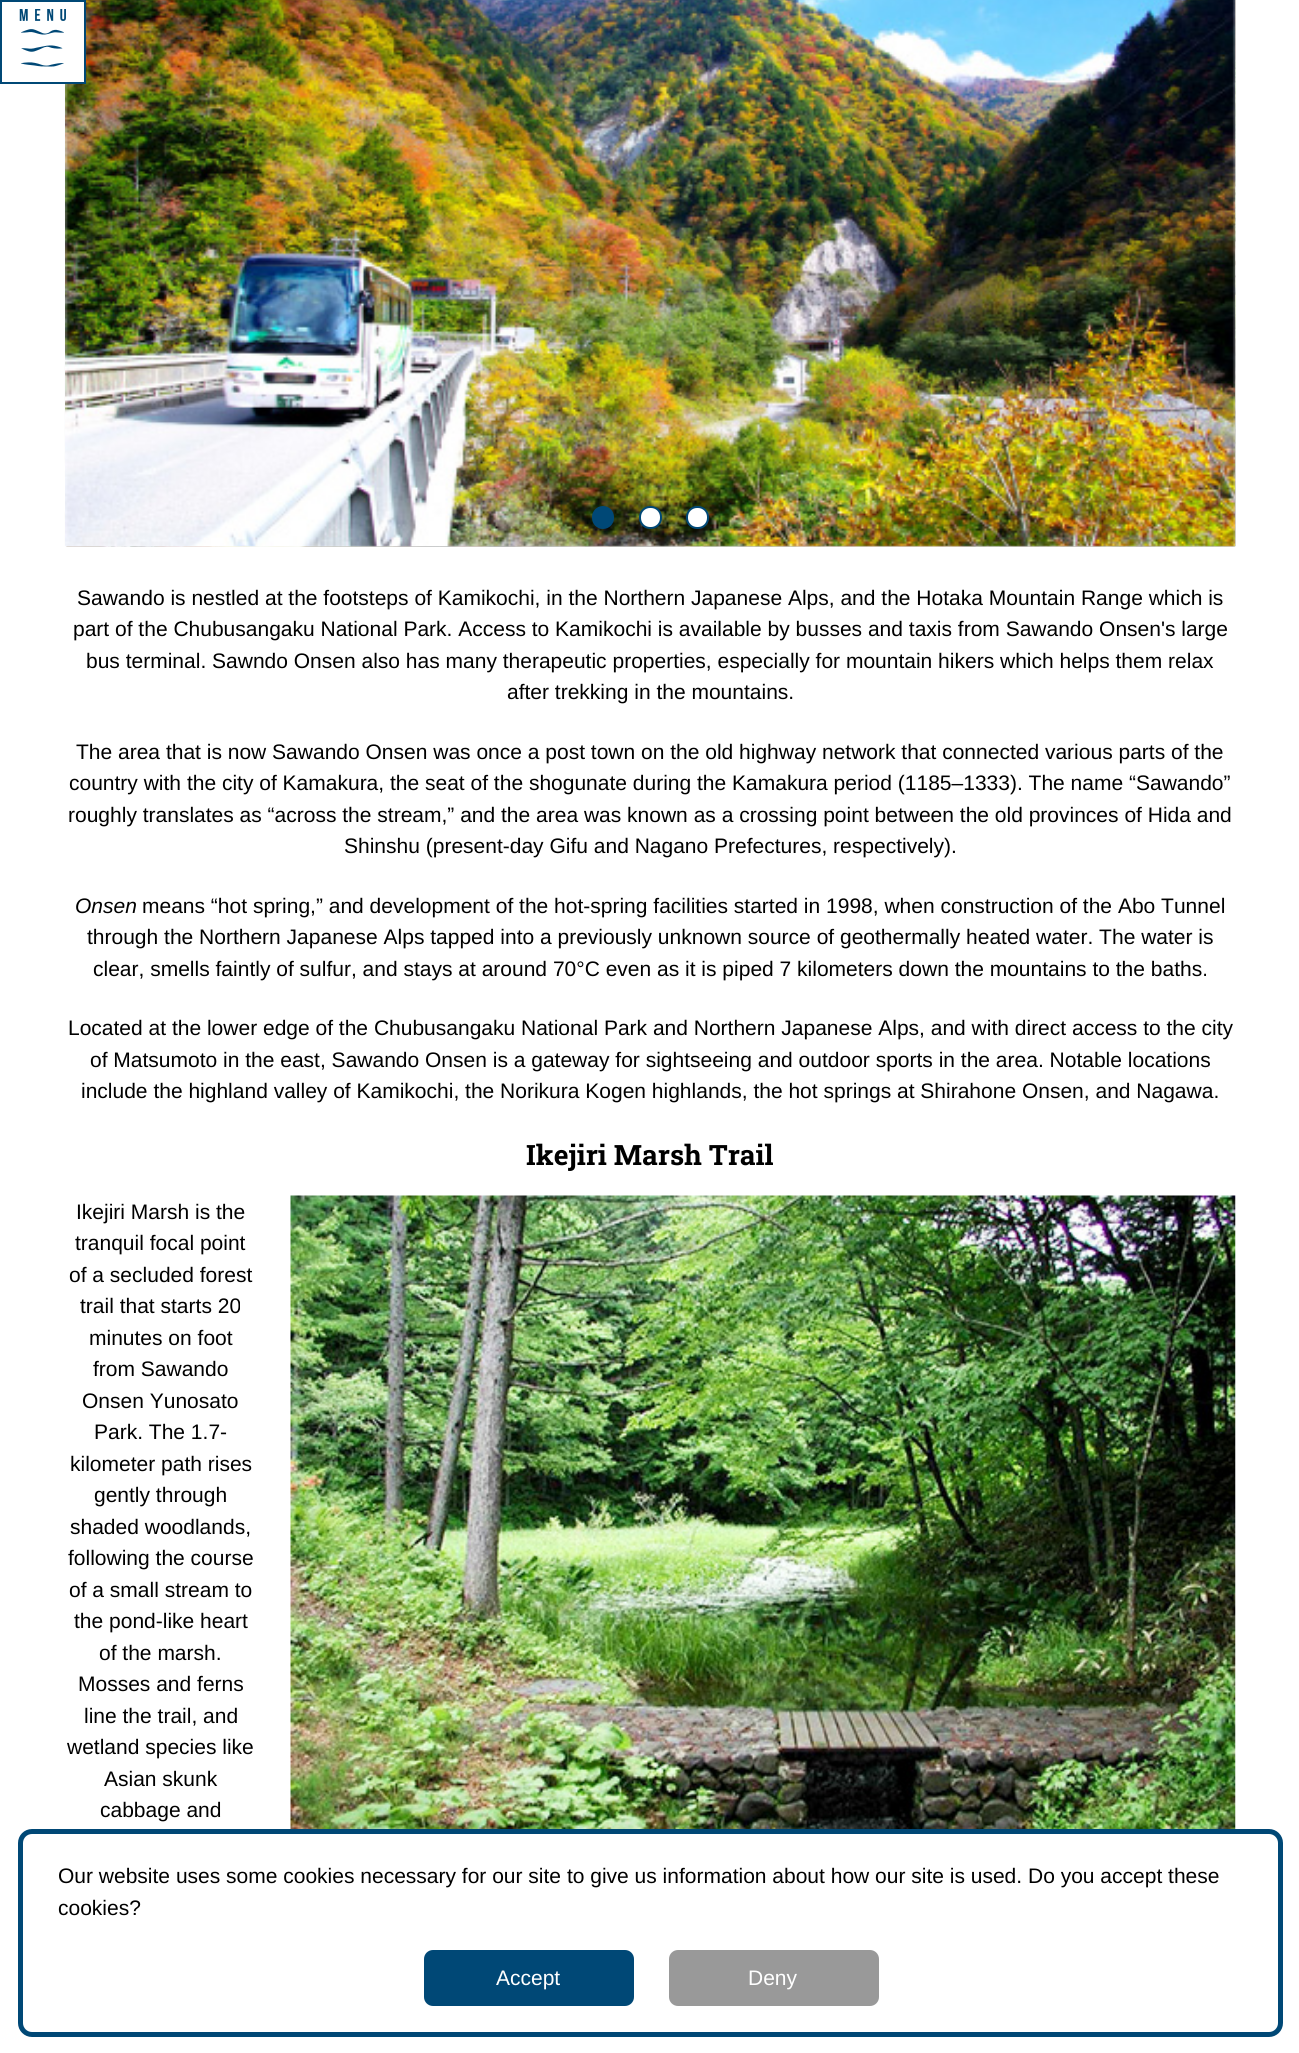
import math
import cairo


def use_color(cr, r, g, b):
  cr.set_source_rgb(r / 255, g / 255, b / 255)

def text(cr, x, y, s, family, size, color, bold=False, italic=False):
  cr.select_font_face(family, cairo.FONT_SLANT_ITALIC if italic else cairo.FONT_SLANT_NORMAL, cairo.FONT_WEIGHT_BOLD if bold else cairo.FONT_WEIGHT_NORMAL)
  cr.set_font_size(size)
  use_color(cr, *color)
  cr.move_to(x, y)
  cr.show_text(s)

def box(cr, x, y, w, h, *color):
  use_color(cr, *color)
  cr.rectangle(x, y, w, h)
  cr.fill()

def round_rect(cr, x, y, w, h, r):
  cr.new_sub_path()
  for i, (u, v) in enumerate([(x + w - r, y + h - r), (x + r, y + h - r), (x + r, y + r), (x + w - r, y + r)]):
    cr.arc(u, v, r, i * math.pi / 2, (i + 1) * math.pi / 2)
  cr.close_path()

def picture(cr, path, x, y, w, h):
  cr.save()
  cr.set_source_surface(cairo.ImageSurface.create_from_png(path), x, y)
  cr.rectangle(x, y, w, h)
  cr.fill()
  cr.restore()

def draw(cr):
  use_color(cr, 255, 255, 255)
  cr.paint()
  picture(cr, "img_02.png", 64, 0, 1172, 547)
  picture(cr, "img_03.png", 65, 0, 1171, 547)
  picture(cr, "img_04.png", 65, 0, 1171, 547)
  cr.rectangle(1, 1, 84, 82)
  use_color(cr, 0, 72, 118)
  cr.stroke()
  box(cr, 64, 2, 20, 80, 255, 255, 255)
  picture(cr, "img_01.png", 19, 9, 47, 58)
  use_color(cr, 0, 72, 118)
  round_rect(cr, 593, 507, 20, 21, 10)
  cr.fill_preserve()
  cr.stroke()
  use_color(cr, 255, 255, 255)
  round_rect(cr, 640, 507, 21, 21, 10)
  cr.fill_preserve()
  use_color(cr, 0, 72, 118)
  cr.stroke()
  use_color(cr, 255, 255, 255)
  round_rect(cr, 687, 507, 21, 21, 10)
  cr.fill_preserve()
  use_color(cr, 0, 72, 118)
  cr.stroke()
  picture(cr, "img_05.png", 290, 1195, 946, 634)
  round_rect(cr, 20.5, 1831.5, 1260, 203, 11.5)
  cr.set_line_width(5)
  cr.stroke()
  round_rect(cr, 425, 1951, 208, 54, 8)
  cr.fill_preserve()
  cr.set_line_width(2)
  cr.stroke()
  use_color(cr, 153, 153, 153)
  round_rect(cr, 670, 1951, 208, 54, 8)
  cr.fill_preserve()
  cr.stroke()
  text(cr, 77, 605, "Sawando is nestled at the footsteps of Kamikochi, in the Northern Japanese Alps, and the Hotaka Mountain Range which is", "Liberation Sans", 21, (0, 0, 0))
  text(cr, 73, 636, "part of the Chubusangaku National Park. Access to Kamikochi is available by busses and taxis from Sawando Onsen's large", "Liberation Sans", 21, (0, 0, 0))
  text(cr, 86, 668, "bus terminal. Sawndo Onsen also has many therapeutic properties, especially for mountain hikers which helps them relax", "Liberation Sans", 21, (0, 0, 0))
  text(cr, 507, 699, "after trekking in the mountains.", "Liberation Sans", 21, (0, 0, 0))
  text(cr, 76, 759, "The area that is now Sawando Onsen was once a post town on the old highway network that connected various parts of the", "Liberation Sans", 21, (0, 0, 0))
  text(cr, 69, 790, "country with the city of Kamakura, the seat of the shogunate during the Kamakura period (1185–1333). The name “Sawando”", "Liberation Sans", 21, (0, 0, 0))
  text(cr, 68, 822, "roughly translates as “across the stream,” and the area was known as a crossing point between the old provinces of Hida and", "Liberation Sans", 21, (0, 0, 0))
  text(cr, 344, 853, "Shinshu (present-day Gifu and Nagano Prefectures, respectively).", "Liberation Sans", 21, (0, 0, 0))
  text(cr, 75, 913, "Onsen", "Liberation Sans", 21, (0, 0, 0), italic=True)
  text(cr, 142, 913, "means “hot spring,” and development of the hot-spring facilities started in 1998, when construction of the Abo Tunnel", "Liberation Sans", 21, (0, 0, 0))
  text(cr, 87, 944, "through the Northern Japanese Alps tapped into a previously unknown source of geothermally heated water. The water is", "Liberation Sans", 21, (0, 0, 0))
  text(cr, 93, 976, "clear, smells faintly of sulfur, and stays at around 70°C even as it is piped 7 kilometers down the mountains to the baths.", "Liberation Sans", 21, (0, 0, 0))
  text(cr, 68, 1035, "Located at the lower edge of the Chubusangaku National Park and Northern Japanese Alps, and with direct access to the city", "Liberation Sans", 21, (0, 0, 0))
  text(cr, 90, 1067, "of Matsumoto in the east, Sawando Onsen is a gateway for sightseeing and outdoor sports in the area. Notable locations", "Liberation Sans", 21, (0, 0, 0))
  text(cr, 81, 1098, "include the highland valley of Kamikochi, the Norikura Kogen highlands, the hot springs at Shirahone Onsen, and Nagawa.", "Liberation Sans", 21, (0, 0, 0))
  text(cr, 526, 1165, "Ikejiri Marsh Trail", "Roboto Slab", 28, (0, 0, 0), bold=True)
  text(cr, 76, 1219, "Ikejiri Marsh is the", "Liberation Sans", 21, (0, 0, 0))
  text(cr, 75, 1250, "tranquil focal point", "Liberation Sans", 21, (0, 0, 0))
  text(cr, 69, 1282, "of a secluded forest", "Liberation Sans", 21, (0, 0, 0))
  text(cr, 80, 1313, "trail that starts 20", "Liberation Sans", 21, (0, 0, 0))
  text(cr, 89, 1345, "minutes on foot", "Liberation Sans", 21, (0, 0, 0))
  text(cr, 93, 1376, "from Sawando", "Liberation Sans", 21, (0, 0, 0))
  text(cr, 82, 1408, "Onsen Yunosato", "Liberation Sans", 21, (0, 0, 0))
  text(cr, 94, 1439, "Park. The 1.7-", "Liberation Sans", 21, (0, 0, 0))
  text(cr, 70, 1471, "kilometer path rises", "Liberation Sans", 21, (0, 0, 0))
  text(cr, 94, 1502, "gently through", "Liberation Sans", 21, (0, 0, 0))
  text(cr, 70, 1534, "shaded woodlands,", "Liberation Sans", 21, (0, 0, 0))
  text(cr, 68, 1565, "following the course", "Liberation Sans", 21, (0, 0, 0))
  text(cr, 69, 1597, "of a small stream to", "Liberation Sans", 21, (0, 0, 0))
  text(cr, 74, 1628, "the pond-like heart", "Liberation Sans", 21, (0, 0, 0))
  text(cr, 99, 1660, "of the marsh.", "Liberation Sans", 21, (0, 0, 0))
  text(cr, 78, 1691, "Mosses and ferns", "Liberation Sans", 21, (0, 0, 0))
  text(cr, 84, 1723, "line the trail, and", "Liberation Sans", 21, (0, 0, 0))
  text(cr, 67, 1754, "wetland species like", "Liberation Sans", 21, (0, 0, 0))
  text(cr, 104, 1786, "Asian skunk", "Liberation Sans", 21, (0, 0, 0))
  text(cr, 100, 1817, "cabbage and", "Liberation Sans", 21, (0, 0, 0))
  text(cr, 58, 1883, "Our website uses some cookies necessary for our site to give us information about how our site is used. Do you accept these", "Liberation Sans", 21, (0, 0, 0))
  text(cr, 58, 1915, "cookies?", "Liberation Sans", 21, (0, 0, 0))
  text(cr, 496, 1985, "Accept", "Liberation Sans", 21, (255, 255, 255))
  text(cr, 748, 1985, "Deny", "Liberation Sans", 21, (255, 255, 255))


surface = cairo.ImageSurface(cairo.FORMAT_RGB24, 1299, 2053)
cr = cairo.Context(surface)
options = cairo.FontOptions()
options.set_hint_metrics(cairo.HINT_METRICS_OFF)
options.set_hint_style(cairo.HINT_STYLE_NONE)
cr.set_font_options(options)
cr.set_miter_limit(4)
draw(cr)
surface.write_to_png("out.png")
